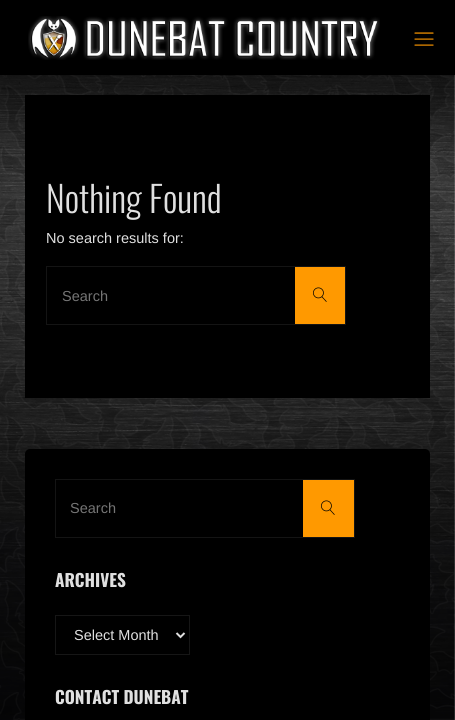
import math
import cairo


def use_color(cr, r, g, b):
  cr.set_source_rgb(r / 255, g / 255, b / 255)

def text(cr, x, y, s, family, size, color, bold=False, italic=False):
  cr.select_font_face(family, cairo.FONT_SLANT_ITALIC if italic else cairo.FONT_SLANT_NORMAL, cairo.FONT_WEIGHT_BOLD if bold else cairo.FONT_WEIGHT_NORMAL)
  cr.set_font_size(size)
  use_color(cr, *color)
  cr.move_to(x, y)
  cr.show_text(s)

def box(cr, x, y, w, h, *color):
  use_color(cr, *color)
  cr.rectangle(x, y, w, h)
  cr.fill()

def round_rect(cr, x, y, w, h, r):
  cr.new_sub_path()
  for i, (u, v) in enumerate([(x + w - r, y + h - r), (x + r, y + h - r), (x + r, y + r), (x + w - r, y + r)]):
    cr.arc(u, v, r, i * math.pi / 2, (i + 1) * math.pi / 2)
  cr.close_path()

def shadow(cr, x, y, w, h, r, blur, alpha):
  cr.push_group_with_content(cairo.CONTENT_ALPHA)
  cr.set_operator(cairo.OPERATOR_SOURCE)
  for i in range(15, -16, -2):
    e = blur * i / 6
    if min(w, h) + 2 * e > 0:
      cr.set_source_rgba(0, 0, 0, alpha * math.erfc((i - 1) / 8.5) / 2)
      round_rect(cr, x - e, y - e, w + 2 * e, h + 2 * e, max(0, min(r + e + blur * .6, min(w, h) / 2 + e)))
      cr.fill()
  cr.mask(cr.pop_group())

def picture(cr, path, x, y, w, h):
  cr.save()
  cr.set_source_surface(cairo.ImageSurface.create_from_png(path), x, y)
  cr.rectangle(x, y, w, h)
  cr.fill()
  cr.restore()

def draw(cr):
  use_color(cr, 255, 255, 255)
  cr.paint()
  picture(cr, "img_01.png", 0, 75, 455, 645)
  use_color(cr, 0, 0, 0)
  shadow(cr, 0, 0, 455, 75, 0, 1.5, 0.2)
  box(cr, 0, 0, 455, 75, 0, 0, 0)
  picture(cr, "img_02.png", 28, 16, 352, 44)
  picture(cr, "img_03.png", 414, 32, 20, 14)
  box(cr, 25, 95, 405, 303, 0, 0, 0)
  cr.rectangle(46.5, 266.5, 299, 58)
  use_color(cr, 20, 20, 20)
  cr.set_line_width(1)
  cr.stroke()
  box(cr, 295, 267, 50, 57, 255, 153, 0)
  picture(cr, "img_04.png", 313, 287, 14, 15)
  use_color(cr, 0, 0, 0)
  round_rect(cr, 25, 449, 405, 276, 5)
  cr.fill()
  cr.rectangle(55.5, 479.5, 299, 58)
  use_color(cr, 20, 20, 20)
  cr.stroke()
  box(cr, 303, 480, 51, 57, 255, 153, 0)
  picture(cr, "img_04.png", 321, 500, 14, 15)
  cr.rectangle(55.5, 615.5, 134, 39)
  use_color(cr, 22, 22, 22)
  cr.stroke()
  cr.new_path()
  cr.move_to(176.5, 633)
  cr.line_to(180.5, 637)
  cr.line_to(184.5, 633)
  use_color(cr, 224, 224, 224)
  cr.set_line_width(2)
  cr.stroke()
  text(cr, 46, 213, "Nothing Found", "Oswald Light", 36, (224, 224, 224))
  text(cr, 46, 243, "No search results for:", "Liberation Sans", 14.5, (224, 224, 224))
  text(cr, 62, 301, "Search", "Liberation Sans", 14.5, (117, 117, 117))
  text(cr, 70, 513, "Search", "Liberation Sans", 14.5, (117, 117, 117))
  text(cr, 55, 587, "ARCHIVES", "Oswald", 17.25, (224, 224, 224), bold=True)
  text(cr, 74, 640, "Select Month", "Liberation Sans", 14.5, (224, 224, 224))
  text(cr, 55, 704, "CONTACT DUNEBAT", "Oswald", 17.25, (224, 224, 224), bold=True)


surface = cairo.ImageSurface(cairo.FORMAT_RGB24, 455, 720)
cr = cairo.Context(surface)
options = cairo.FontOptions()
options.set_hint_metrics(cairo.HINT_METRICS_OFF)
options.set_hint_style(cairo.HINT_STYLE_NONE)
cr.set_font_options(options)
cr.set_miter_limit(4)
draw(cr)
surface.write_to_png("out.png")
